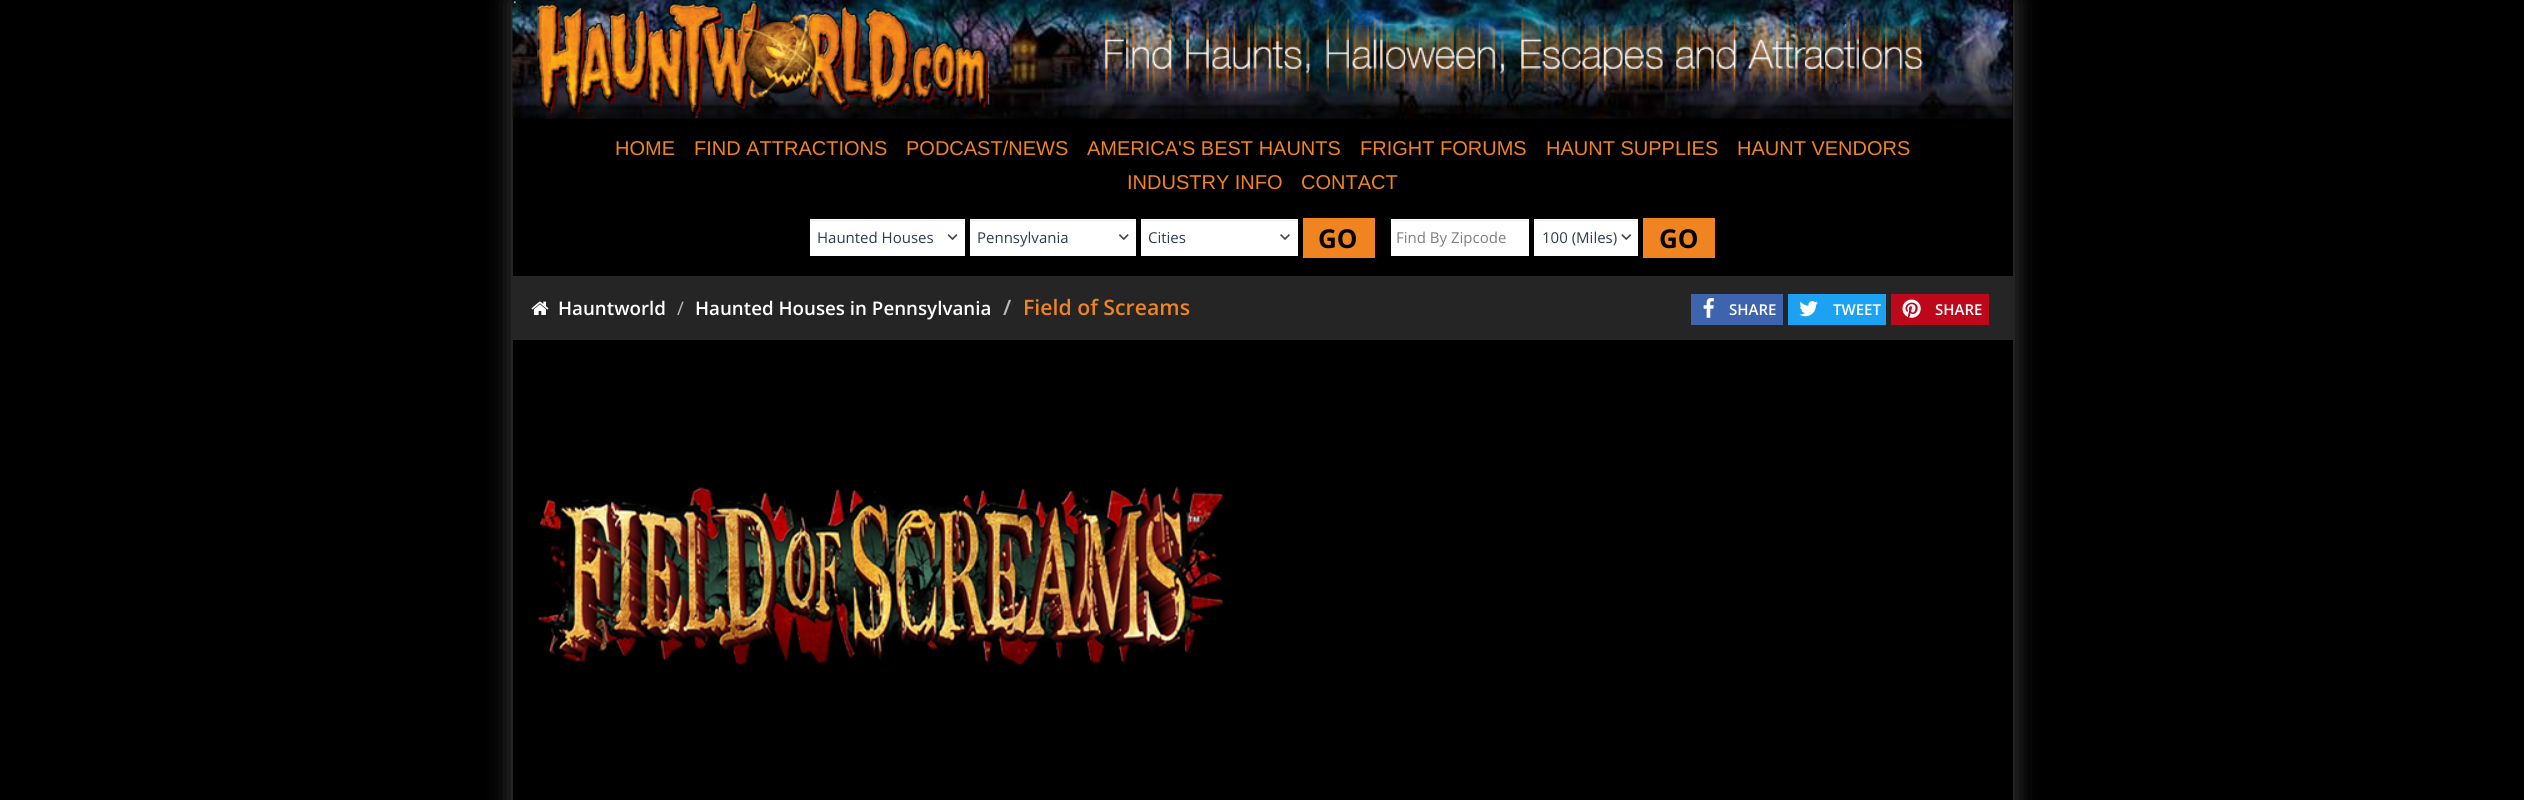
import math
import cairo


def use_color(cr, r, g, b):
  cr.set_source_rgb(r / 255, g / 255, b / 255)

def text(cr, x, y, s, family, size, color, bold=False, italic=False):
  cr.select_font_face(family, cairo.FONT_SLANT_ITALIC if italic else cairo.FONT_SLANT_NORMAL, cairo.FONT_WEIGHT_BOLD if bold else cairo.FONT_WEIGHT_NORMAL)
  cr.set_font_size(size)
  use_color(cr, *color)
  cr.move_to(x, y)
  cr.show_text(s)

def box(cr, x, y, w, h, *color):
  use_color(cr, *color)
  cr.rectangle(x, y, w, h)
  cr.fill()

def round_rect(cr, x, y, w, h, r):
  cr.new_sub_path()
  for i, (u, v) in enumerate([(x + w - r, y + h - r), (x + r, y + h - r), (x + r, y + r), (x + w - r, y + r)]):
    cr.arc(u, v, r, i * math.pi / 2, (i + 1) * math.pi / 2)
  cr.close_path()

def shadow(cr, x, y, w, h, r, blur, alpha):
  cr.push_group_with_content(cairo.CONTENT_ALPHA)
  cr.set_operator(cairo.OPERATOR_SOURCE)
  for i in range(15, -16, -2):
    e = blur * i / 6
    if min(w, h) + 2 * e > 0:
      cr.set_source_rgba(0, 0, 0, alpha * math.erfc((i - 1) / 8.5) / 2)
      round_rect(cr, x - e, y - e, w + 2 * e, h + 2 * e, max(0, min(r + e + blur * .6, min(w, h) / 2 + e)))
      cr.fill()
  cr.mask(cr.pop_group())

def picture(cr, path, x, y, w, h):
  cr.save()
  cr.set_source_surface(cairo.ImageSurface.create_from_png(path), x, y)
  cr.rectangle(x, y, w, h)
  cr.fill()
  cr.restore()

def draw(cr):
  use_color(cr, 0, 0, 0)
  cr.paint()
  use_color(cr, 95, 95, 95)
  shadow(cr, 513, 0, 1500, 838, 0, 12.5, 0.75)
  box(cr, 513, 0, 1500, 800, 0, 0, 0)
  picture(cr, "img_01.png", 512, 0, 1501, 119)
  picture(cr, "img_02.png", 537, 1, 453, 117)
  picture(cr, "img_03.png", 1104, 18, 819, 74)
  box(cr, 810, 219, 155, 37, 255, 255, 255)
  picture(cr, "img_04.png", 947, 234, 11, 7)
  box(cr, 811, 220, 153, 1, 236, 236, 236)
  box(cr, 970, 219, 166, 37, 255, 255, 255)
  picture(cr, "img_05.png", 1118, 234, 11, 7)
  box(cr, 971, 220, 164, 1, 236, 236, 236)
  box(cr, 1141, 219, 157, 37, 255, 255, 255)
  picture(cr, "img_06.png", 1280, 234, 10, 6)
  box(cr, 1143, 220, 153, 1, 236, 236, 236)
  box(cr, 1303, 218, 72, 40, 239, 132, 33)
  box(cr, 1391, 219, 138, 37, 255, 255, 255)
  box(cr, 1393, 220, 135, 1, 236, 236, 236)
  box(cr, 1534, 219, 104, 37, 255, 255, 255)
  picture(cr, "img_07.png", 1621, 234, 11, 7)
  box(cr, 1535, 220, 101, 1, 236, 236, 236)
  box(cr, 1643, 218, 72, 40, 239, 132, 33)
  box(cr, 513, 276, 1500, 64, 37, 37, 37)
  picture(cr, "img_08.png", 531, 301, 18, 14)
  box(cr, 1691, 294, 92, 31, 62, 100, 173)
  picture(cr, "img_09.png", 1703, 298, 11, 20)
  box(cr, 1788, 294, 98, 31, 29, 161, 242)
  picture(cr, "img_10.png", 1799, 301, 19, 16)
  box(cr, 1891, 294, 98, 31, 189, 8, 28)
  picture(cr, "img_11.png", 1902, 299, 19, 19)
  picture(cr, "img_12.png", 537, 485, 686, 182)
  text(cr, 615, 155, "HOME", "Liberation Sans", 20, (239, 132, 33))
  text(cr, 694, 155, "FIND ATTRACTIONS", "Liberation Sans", 20, (239, 132, 33))
  text(cr, 906, 155, "PODCAST/NEWS", "Liberation Sans", 20, (239, 132, 33))
  text(cr, 1087, 155, "AMERICA'S BEST HAUNTS", "Liberation Sans", 20, (239, 132, 33))
  text(cr, 1360, 155, "FRIGHT FORUMS", "Liberation Sans", 20, (239, 132, 33))
  text(cr, 1546, 155, "HAUNT SUPPLIES", "Liberation Sans", 20, (239, 132, 33))
  text(cr, 1737, 155, "HAUNT VENDORS", "Liberation Sans", 20, (239, 132, 33))
  text(cr, 1127, 189, "INDUSTRY INFO", "Liberation Sans", 20, (239, 132, 33))
  text(cr, 1301, 189, "CONTACT", "Liberation Sans", 20, (239, 132, 33))
  text(cr, 817, 243, "Haunted Houses", "Open Sans", 15, (43, 62, 80))
  text(cr, 977, 243, "Pennsylvania", "Open Sans", 15, (43, 62, 80))
  text(cr, 1148, 243, "Cities", "Open Sans", 15, (43, 62, 80))
  text(cr, 1318, 248, "GO", "Open Sans", 26, (0, 0, 0), bold=True)
  text(cr, 1396, 243, "Find By Zipcode", "Open Sans", 15, (128, 128, 128))
  text(cr, 1542, 243, "100 (Miles)", "Open Sans", 15, (43, 62, 80))
  text(cr, 1659, 248, "GO", "Open Sans", 26, (0, 0, 0), bold=True)
  text(cr, 558, 315, "Hauntworld", "Open Sans SemiBold", 18.75, (255, 255, 255))
  text(cr, 677, 315, "/", "Open Sans", 18.75, (185, 185, 185))
  text(cr, 695, 315, "Haunted Houses in Pennsylvania", "Open Sans SemiBold", 18.75, (255, 255, 255))
  text(cr, 1003, 315, "/", "Open Sans SemiBold", 21.25, (185, 185, 185))
  text(cr, 1023, 315, "Field of Screams", "Open Sans SemiBold", 21.25, (239, 132, 33))
  text(cr, 1729, 315, "SHARE", "Open Sans SemiBold", 15, (255, 255, 255))
  text(cr, 1833, 315, "TWEET", "Open Sans SemiBold", 15, (255, 255, 255))
  text(cr, 1935, 315, "SHARE", "Open Sans SemiBold", 15, (255, 255, 255))


surface = cairo.ImageSurface(cairo.FORMAT_RGB24, 2524, 800)
cr = cairo.Context(surface)
options = cairo.FontOptions()
options.set_hint_metrics(cairo.HINT_METRICS_OFF)
options.set_hint_style(cairo.HINT_STYLE_NONE)
cr.set_font_options(options)
cr.set_miter_limit(4)
draw(cr)
surface.write_to_png("out.png")
